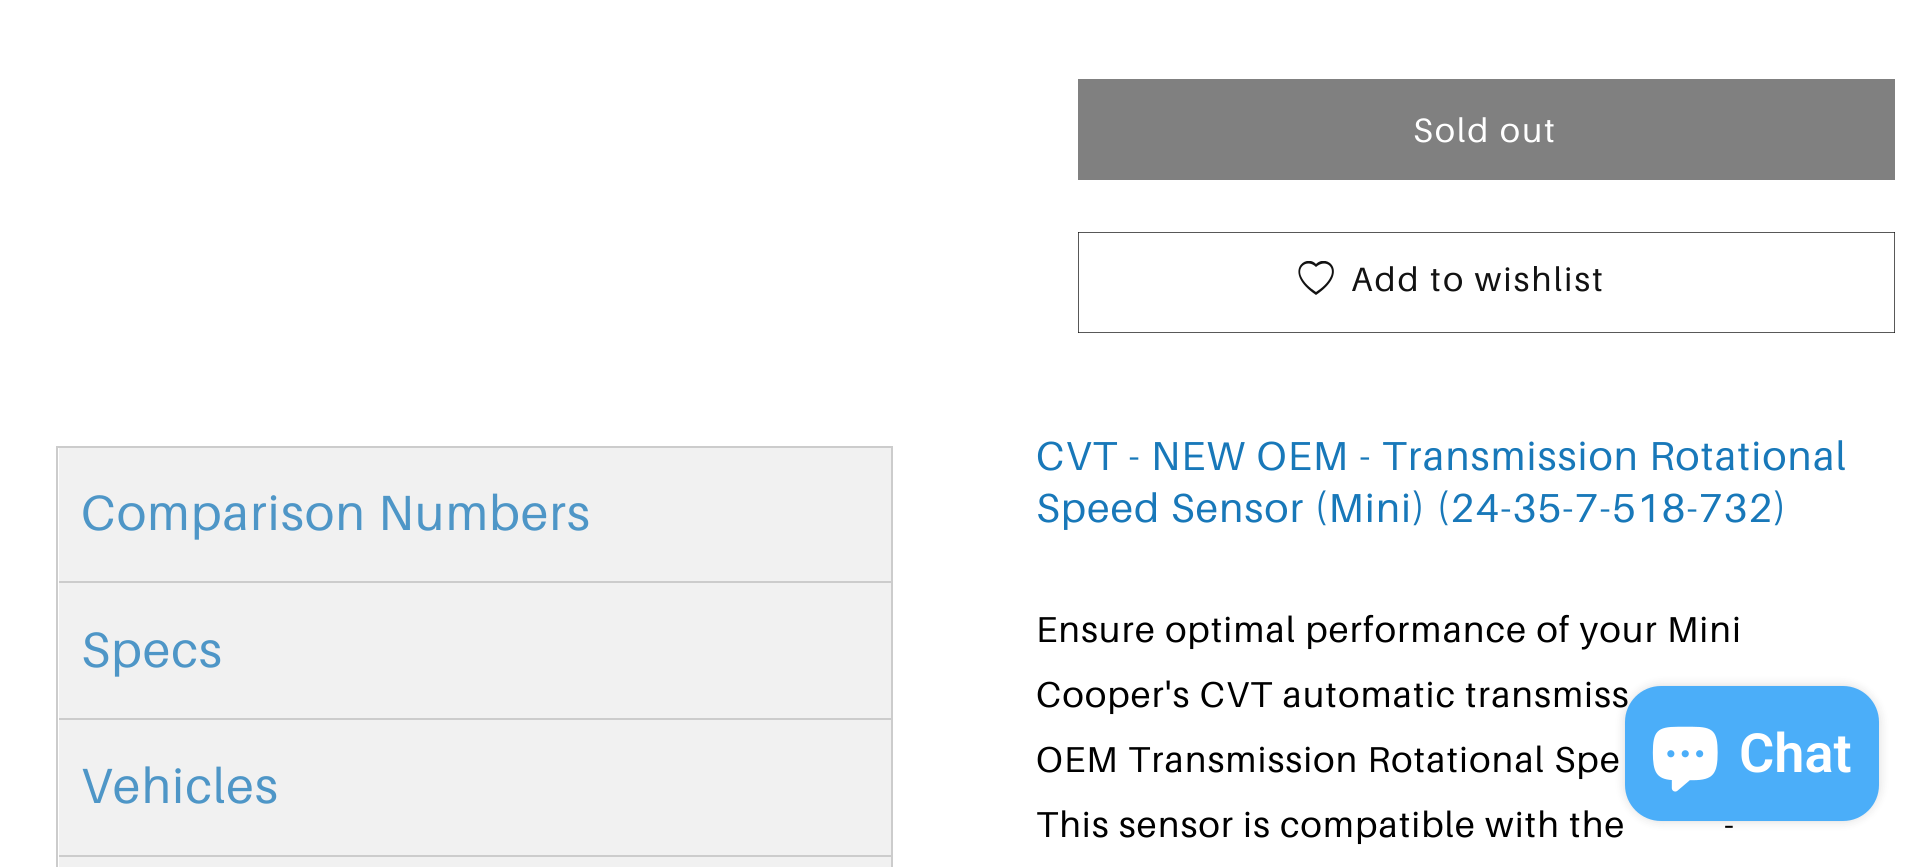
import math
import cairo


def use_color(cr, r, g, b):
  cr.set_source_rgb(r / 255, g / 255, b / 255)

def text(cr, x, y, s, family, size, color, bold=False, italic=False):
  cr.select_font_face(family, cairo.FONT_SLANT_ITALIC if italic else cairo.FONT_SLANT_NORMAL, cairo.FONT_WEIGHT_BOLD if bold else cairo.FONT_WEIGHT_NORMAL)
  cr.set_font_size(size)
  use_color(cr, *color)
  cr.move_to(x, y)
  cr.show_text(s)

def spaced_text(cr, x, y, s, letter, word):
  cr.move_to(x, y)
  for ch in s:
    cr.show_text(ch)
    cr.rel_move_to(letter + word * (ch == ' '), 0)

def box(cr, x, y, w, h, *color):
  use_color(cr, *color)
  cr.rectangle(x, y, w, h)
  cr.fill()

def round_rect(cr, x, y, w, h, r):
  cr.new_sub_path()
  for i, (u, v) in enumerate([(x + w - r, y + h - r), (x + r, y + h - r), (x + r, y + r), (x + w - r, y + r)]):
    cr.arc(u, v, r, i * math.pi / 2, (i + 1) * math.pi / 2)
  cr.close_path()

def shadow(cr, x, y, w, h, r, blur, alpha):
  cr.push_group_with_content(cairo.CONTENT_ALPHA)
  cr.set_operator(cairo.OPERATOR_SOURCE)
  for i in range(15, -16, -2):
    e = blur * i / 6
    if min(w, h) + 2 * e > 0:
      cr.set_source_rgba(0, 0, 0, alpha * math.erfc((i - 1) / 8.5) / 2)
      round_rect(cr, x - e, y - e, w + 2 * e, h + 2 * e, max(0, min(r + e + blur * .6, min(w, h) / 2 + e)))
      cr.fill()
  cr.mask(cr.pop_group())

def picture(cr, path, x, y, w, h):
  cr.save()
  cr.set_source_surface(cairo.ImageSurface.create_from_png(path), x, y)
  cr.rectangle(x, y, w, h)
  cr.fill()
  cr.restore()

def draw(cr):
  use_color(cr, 255, 255, 255)
  cr.paint()
  box(cr, 1078, 79, 817, 101, 128, 128, 128)
  cr.save()
  cr.rectangle(1298, 261, 36, 36)
  cr.clip()
  use_color(cr, 18, 18, 18)
  cr.new_path()
  cr.move_to(1316, 267)
  cr.curve_to(1308, 259, 1297, 266, 1301, 276)
  cr.curve_to(1304, 283, 1310, 288, 1316, 292)
  cr.curve_to(1322, 288, 1328, 283, 1331, 276)
  cr.curve_to(1335, 266, 1325, 259, 1316, 267)
  cr.close_path()
  cr.move_to(1316, 295)
  cr.curve_to(1282, 272, 1306, 253, 1316, 264)
  cr.curve_to(1327, 253, 1350, 272, 1316, 295)
  cr.close_path()
  cr.fill()
  cr.restore()
  cr.rectangle(1078.35, 232.35, 816.3, 100.3)
  use_color(cr, 18, 18, 18)
  cr.set_line_width(0.7)
  cr.stroke()
  cr.rectangle(57, 447, 835, 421)
  use_color(cr, 204, 204, 204)
  cr.set_line_width(2)
  cr.stroke()
  box(cr, 59, 581, 832, 2, 204, 204, 204)
  box(cr, 59, 448, 832, 133, 241, 241, 241)
  box(cr, 59, 718, 832, 2, 204, 204, 204)
  box(cr, 59, 583, 832, 135, 241, 241, 241)
  box(cr, 59, 855, 832, 2, 204, 204, 204)
  box(cr, 59, 720, 832, 135, 241, 241, 241)
  box(cr, 59, 857, 832, 10, 241, 241, 241)
  use_color(cr, 0, 0, 0)
  shadow(cr, 1625, 686, 254, 135, 36, 5.5, 0.15)
  cr.select_font_face("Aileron")
  cr.set_font_size(33.75)
  use_color(cr, 255, 255, 255)
  spaced_text(cr, 1413, 142, "Sold out", 2.25, 0)
  use_color(cr, 18, 18, 18)
  spaced_text(cr, 1351, 291, "Add to wishlist", 2.25, 0)
  cr.set_font_size(49.5)
  use_color(cr, 78, 150, 199)
  spaced_text(cr, 81, 530, "Comparison Numbers", 1.35, 0)
  spaced_text(cr, 81, 667, "Specs", 1.35, 0)
  spaced_text(cr, 81, 803, "Vehicles", 1.35, 0)
  cr.set_font_size(40.5)
  use_color(cr, 24, 120, 185)
  spaced_text(cr, 1036, 470, "CVT - NEW OEM - Transmission Rotational", 1.35, 0)
  spaced_text(cr, 1036, 522, "Speed Sensor (Mini) (24-35-7-518-732)", 1.35, 0)
  cr.set_font_size(36)
  use_color(cr, 0, 0, 0)
  spaced_text(cr, 1036, 642, "Ensure optimal performance of your Mini", 1.35, 0)
  spaced_text(cr, 1036, 707, "Cooper's CVT automatic transmiss", 1.35, 0)
  spaced_text(cr, 1036, 772, "OEM Transmission Rotational Spe", 1.35, 0)
  spaced_text(cr, 1036, 837, "This sensor is compatible with the", 1.35, 0)
  spaced_text(cr, 1724, 837, "-", 1.35, 0)
  use_color(cr, 75, 174, 249)
  round_rect(cr, 1625, 686, 254, 135, 36)
  cr.fill()
  picture(cr, "img_01.png", 1652, 726, 66, 66)
  text(cr, 1739, 772, "Chat", "Roboto SemiBold", 54, (255, 255, 255))


surface = cairo.ImageSurface(cairo.FORMAT_RGB24, 1928, 867)
cr = cairo.Context(surface)
options = cairo.FontOptions()
options.set_hint_metrics(cairo.HINT_METRICS_OFF)
options.set_hint_style(cairo.HINT_STYLE_NONE)
cr.set_font_options(options)
cr.set_miter_limit(4)
draw(cr)
surface.write_to_png("out.png")
